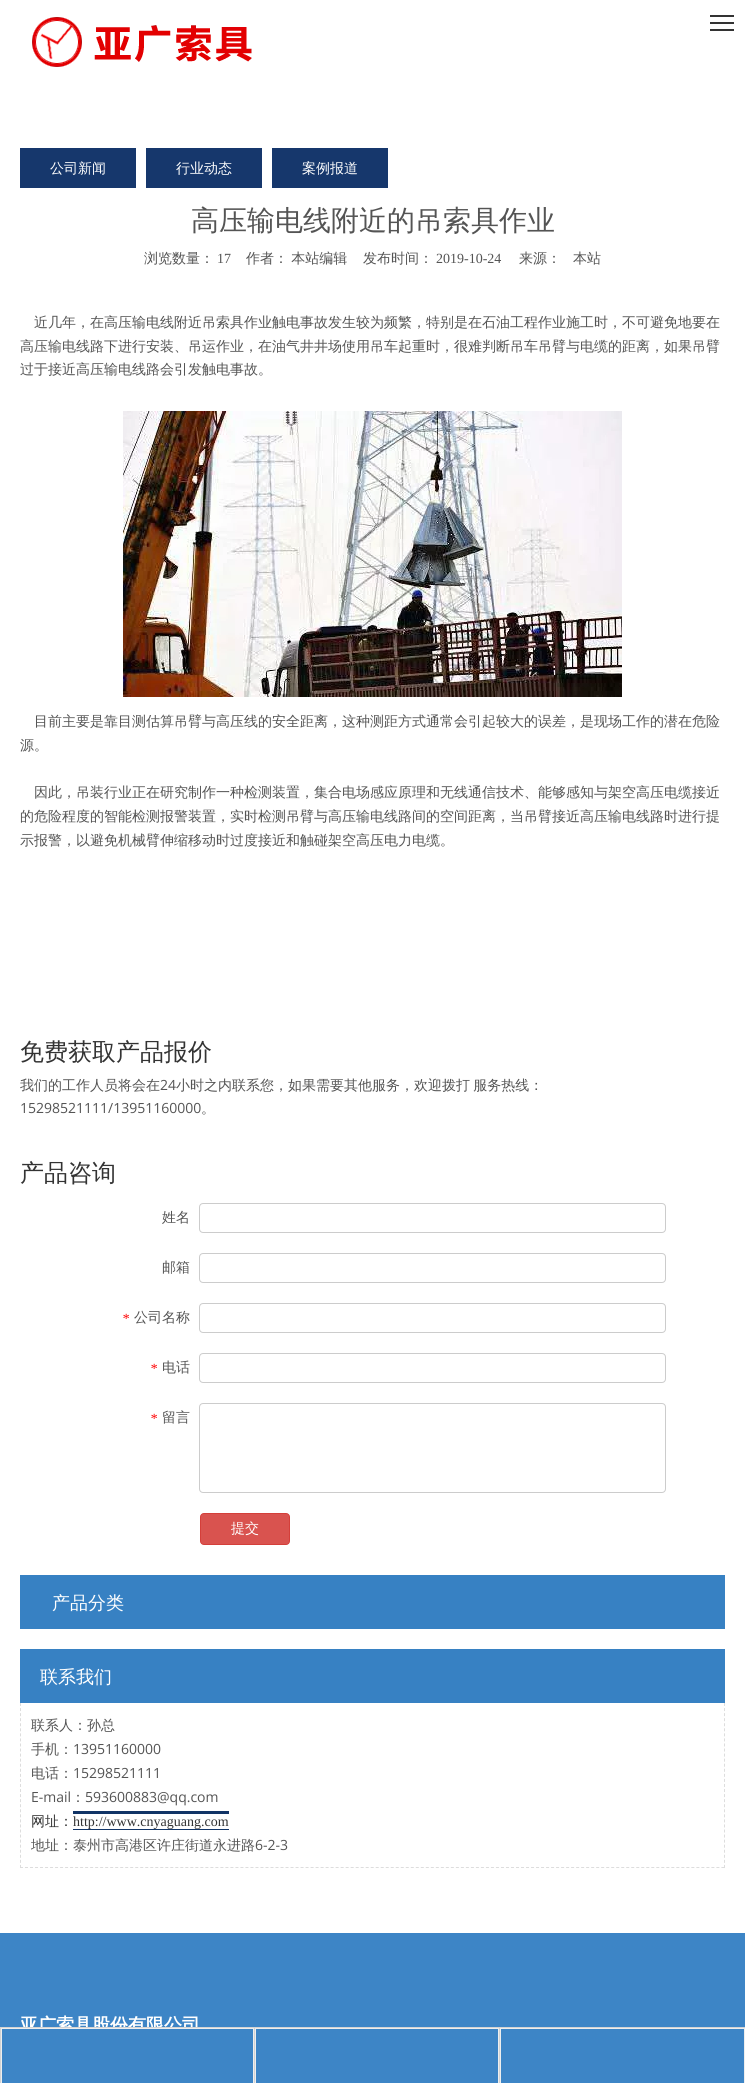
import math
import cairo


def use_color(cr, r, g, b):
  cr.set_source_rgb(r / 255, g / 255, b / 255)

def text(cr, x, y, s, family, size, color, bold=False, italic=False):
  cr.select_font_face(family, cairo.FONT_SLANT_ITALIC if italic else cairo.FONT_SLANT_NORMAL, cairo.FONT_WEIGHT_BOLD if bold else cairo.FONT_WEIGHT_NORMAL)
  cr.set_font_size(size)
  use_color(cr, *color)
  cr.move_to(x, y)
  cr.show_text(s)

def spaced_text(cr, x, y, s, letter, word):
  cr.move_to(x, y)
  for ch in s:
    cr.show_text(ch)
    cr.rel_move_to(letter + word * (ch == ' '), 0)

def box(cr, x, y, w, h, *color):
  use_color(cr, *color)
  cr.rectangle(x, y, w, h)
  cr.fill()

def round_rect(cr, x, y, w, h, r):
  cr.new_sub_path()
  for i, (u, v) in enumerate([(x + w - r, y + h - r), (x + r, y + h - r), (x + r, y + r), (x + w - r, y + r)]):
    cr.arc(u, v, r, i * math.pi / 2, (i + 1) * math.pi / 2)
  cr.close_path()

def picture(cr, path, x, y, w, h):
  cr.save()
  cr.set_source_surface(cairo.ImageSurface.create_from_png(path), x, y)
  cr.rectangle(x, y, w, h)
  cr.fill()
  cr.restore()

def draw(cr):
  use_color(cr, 255, 255, 255)
  cr.paint()
  picture(cr, "img_01.png", 32, 17, 220, 50)
  box(cr, 710, 15, 24, 2, 51, 51, 51)
  box(cr, 710, 22, 24, 2, 51, 51, 51)
  box(cr, 710, 29, 24, 2, 51, 51, 51)
  box(cr, 20, 148, 116, 40, 22, 55, 108)
  box(cr, 146, 148, 116, 40, 22, 55, 108)
  box(cr, 272, 148, 116, 40, 22, 55, 108)
  picture(cr, "img_02.png", 123, 411, 499, 286)
  round_rect(cr, 199.5, 1203.5, 466, 29, 3.5)
  use_color(cr, 204, 204, 204)
  cr.set_line_width(1)
  cr.stroke()
  round_rect(cr, 199.5, 1253.5, 466, 29, 3.5)
  cr.stroke()
  round_rect(cr, 199.5, 1303.5, 466, 29, 3.5)
  cr.stroke()
  round_rect(cr, 199.5, 1353.5, 466, 29, 3.5)
  cr.stroke()
  round_rect(cr, 199.5, 1403.5, 466, 89, 3.5)
  cr.stroke()
  use_color(cr, 217, 83, 79)
  round_rect(cr, 200.5, 1513.5, 89, 31, 3.5)
  cr.fill_preserve()
  use_color(cr, 212, 63, 58)
  cr.stroke()
  box(cr, 20, 1575, 705, 54, 55, 129, 195)
  box(cr, 20, 1649, 705, 54, 55, 129, 195)
  cr.new_path()
  cr.move_to(724.5, 1703)
  cr.line_to(724.5, 1868)
  use_color(cr, 221, 221, 221)
  cr.set_dash([3, 2.06])
  cr.stroke()
  cr.new_path()
  cr.move_to(20, 1867.5)
  cr.line_to(725, 1867.5)
  cr.set_dash([3, 2.01])
  cr.stroke()
  cr.new_path()
  cr.move_to(20.5, 1703)
  cr.line_to(20.5, 1868)
  cr.set_dash([3, 2.06])
  cr.stroke()
  box(cr, 73, 1811, 156, 19, 17, 52, 102)
  box(cr, 73, 1814, 156, 15, 255, 255, 255)
  box(cr, 0, 1933, 745, 94, 61, 133, 198)
  box(cr, 0, 2028, 1, 55, 211, 211, 211)
  box(cr, 254, 2028, 1, 55, 211, 211, 211)
  box(cr, 256, 2029, 242, 54, 61, 133, 198)
  box(cr, 255, 2028, 244, 1, 238, 238, 238)
  box(cr, 498, 2028, 1, 55, 238, 238, 238)
  box(cr, 255, 2028, 1, 55, 238, 238, 238)
  box(cr, 499, 2028, 1, 55, 211, 211, 211)
  use_color(cr, 61, 133, 198)
  cr.rectangle(500.5, 2028.5, 244, 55)
  cr.fill_preserve()
  use_color(cr, 238, 238, 238)
  cr.set_dash([])
  cr.stroke()
  text(cr, 50, 173, "公司新闻", "WenQuanYi Zen Hei Medium", 14, (255, 255, 255))
  text(cr, 176, 173, "行业动态", "WenQuanYi Zen Hei Medium", 14, (255, 255, 255))
  text(cr, 302, 173, "案例报道", "WenQuanYi Zen Hei Medium", 14, (255, 255, 255))
  text(cr, 191, 230, "高压输电线附近的吊索具作业", "WenQuanYi Zen Hei Medium", 28, (84, 84, 84))
  text(cr, 144, 263, "浏览数量：", "WenQuanYi Zen Hei Medium", 14, (84, 84, 84))
  text(cr, 217, 263, "17", "Liberation Serif", 14, (84, 84, 84))
  cr.select_font_face("WenQuanYi Zen Hei Medium")
  spaced_text(cr, 246, 263, "作者： 本站编辑", 0, -1)
  text(cr, 363, 263, "发布时间：", "WenQuanYi Zen Hei Medium", 14, (84, 84, 84))
  text(cr, 436, 263, "2019-10-24", "Liberation Serif", 14, (84, 84, 84))
  text(cr, 519, 263, "来源：", "WenQuanYi Zen Hei Medium", 14, (84, 84, 84))
  text(cr, 573, 263, "本站", "WenQuanYi Zen Hei Medium", 14, (84, 84, 84))
  text(cr, 34, 327, "近几年，在高压输电线附近吊索具作业触电事故发生较为频繁，特别是在石油工程作业施工时，不可避免地要在", "WenQuanYi Zen Hei Medium", 14, (84, 84, 84))
  text(cr, 20, 351, "高压输电线路下进行安装、吊运作业，在油气井井场使用吊车起重时，很难判断吊车吊臂与电缆的距离，如果吊臂", "WenQuanYi Zen Hei Medium", 14, (84, 84, 84))
  text(cr, 20, 374, "过于接近高压输电线路会引发触电事故。", "WenQuanYi Zen Hei Medium", 14, (84, 84, 84))
  text(cr, 34, 726, "目前主要是靠目测估算吊臂与高压线的安全距离，这种测距方式通常会引起较大的误差，是现场工作的潜在危险", "WenQuanYi Zen Hei Medium", 14, (84, 84, 84))
  text(cr, 20, 750, "源。", "WenQuanYi Zen Hei Medium", 14, (84, 84, 84))
  text(cr, 34, 797, "因此，吊装行业正在研究制作一种检测装置，集合电场感应原理和无线通信技术、能够感知与架空高压电缆接近", "WenQuanYi Zen Hei Medium", 14, (84, 84, 84))
  text(cr, 20, 821, "的危险程度的智能检测报警装置，实时检测吊臂与高压输电线路间的空间距离，当吊臂接近高压输电线路时进行提", "WenQuanYi Zen Hei Medium", 14, (84, 84, 84))
  text(cr, 20, 845, "示报警，以避免机械臂伸缩移动时过度接近和触碰架空高压电力电缆。", "WenQuanYi Zen Hei Medium", 14, (84, 84, 84))
  text(cr, 20, 1060, "免费获取产品报价", "WenQuanYi Zen Hei Medium", 24, (51, 51, 51))
  text(cr, 20, 1090, "我们的工作人员将会在", "WenQuanYi Zen Hei Medium", 14, (84, 84, 84))
  text(cr, 160, 1090, "24", "Open Sans", 14, (84, 84, 84))
  cr.select_font_face("WenQuanYi Zen Hei Medium")
  spaced_text(cr, 176, 1090, "小时之内联系您，如果需要其他服务，欢迎拨打 服务热线：", 0, -1)
  text(cr, 20, 1113, "15298521111/13951160000", "Open Sans", 14, (84, 84, 84))
  text(cr, 201, 1113, "。", "WenQuanYi Zen Hei Medium", 14, (84, 84, 84))
  text(cr, 20, 1181, "产品咨询", "WenQuanYi Zen Hei Medium", 24, (51, 51, 51))
  text(cr, 162, 1222, "姓名", "WenQuanYi Zen Hei Medium", 14, (84, 84, 84))
  text(cr, 162, 1272, "邮箱", "WenQuanYi Zen Hei Medium", 14, (84, 84, 84))
  text(cr, 122, 1323, "*", "Liberation Serif", 14, (255, 0, 0), italic=True)
  text(cr, 134, 1322, "公司名称", "WenQuanYi Zen Hei Medium", 14, (84, 84, 84))
  text(cr, 150, 1373, "*", "Liberation Serif", 14, (255, 0, 0), italic=True)
  text(cr, 162, 1372, "电话", "WenQuanYi Zen Hei Medium", 14, (84, 84, 84))
  text(cr, 150, 1423, "*", "Liberation Serif", 14, (255, 0, 0), italic=True)
  text(cr, 162, 1422, "留言", "WenQuanYi Zen Hei Medium", 14, (84, 84, 84))
  text(cr, 231, 1533, "提交", "WenQuanYi Zen Hei Medium", 14, (255, 255, 255))
  text(cr, 52, 1609, "产品分类", "WenQuanYi Zen Hei Medium", 18, (255, 255, 255))
  text(cr, 40, 1683, "联系我们", "WenQuanYi Zen Hei Medium", 18, (255, 255, 255))
  text(cr, 31, 1730, "联系人：孙总", "WenQuanYi Zen Hei Medium", 14, (84, 84, 84))
  text(cr, 31, 1754, "手机：", "WenQuanYi Zen Hei Medium", 14, (84, 84, 84))
  text(cr, 73, 1754, "13951160000", "Open Sans", 14, (84, 84, 84))
  text(cr, 31, 1778, "电话：", "WenQuanYi Zen Hei Medium", 14, (84, 84, 84))
  text(cr, 73, 1778, "15298521111", "Open Sans", 14, (84, 84, 84))
  text(cr, 31, 1802, "E-mail", "Open Sans", 14, (84, 84, 84))
  text(cr, 71, 1802, "：", "WenQuanYi Zen Hei Medium", 14, (84, 84, 84))
  text(cr, 85, 1802, "593600883@qq.com", "Open Sans", 14, (84, 84, 84))
  text(cr, 31, 1826, "网址：", "WenQuanYi Zen Hei Medium", 14, (51, 51, 51))
  text(cr, 73, 1826, "http://www.cnyaguang.com", "Liberation Serif", 14, (51, 51, 51))
  text(cr, 31, 1850, "地址：泰州市高港区许庄街道永进路", "WenQuanYi Zen Hei Medium", 14, (84, 84, 84))
  text(cr, 255, 1850, "6-2-3", "Open Sans", 14, (84, 84, 84))
  text(cr, 20, 2031, "亚广索具股份有限公司", "WenQuanYi Zen Hei", 18, (255, 255, 255), bold=True)
  box(cr, 0, 2027, 745, 1, 211, 211, 211)
  box(cr, 2, 2029, 251, 54, 61, 133, 198)
  box(cr, 1, 2028, 253, 1, 238, 238, 238)
  box(cr, 253, 2028, 1, 55, 238, 238, 238)
  box(cr, 1, 2028, 1, 55, 238, 238, 238)


surface = cairo.ImageSurface(cairo.FORMAT_RGB24, 745, 2083)
cr = cairo.Context(surface)
options = cairo.FontOptions()
options.set_hint_metrics(cairo.HINT_METRICS_OFF)
options.set_hint_style(cairo.HINT_STYLE_NONE)
cr.set_font_options(options)
cr.set_miter_limit(4)
draw(cr)
surface.write_to_png("out.png")
